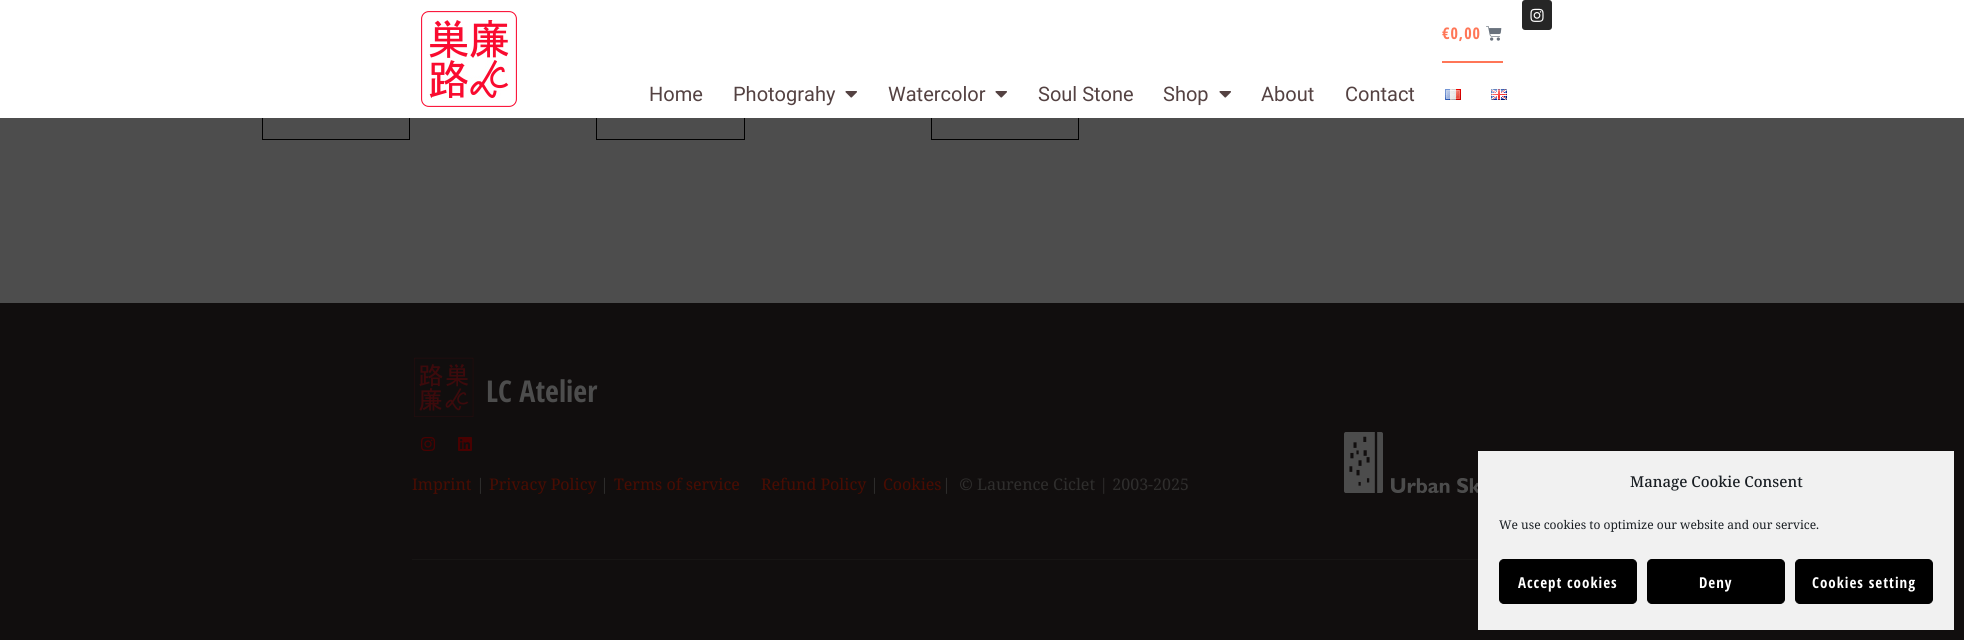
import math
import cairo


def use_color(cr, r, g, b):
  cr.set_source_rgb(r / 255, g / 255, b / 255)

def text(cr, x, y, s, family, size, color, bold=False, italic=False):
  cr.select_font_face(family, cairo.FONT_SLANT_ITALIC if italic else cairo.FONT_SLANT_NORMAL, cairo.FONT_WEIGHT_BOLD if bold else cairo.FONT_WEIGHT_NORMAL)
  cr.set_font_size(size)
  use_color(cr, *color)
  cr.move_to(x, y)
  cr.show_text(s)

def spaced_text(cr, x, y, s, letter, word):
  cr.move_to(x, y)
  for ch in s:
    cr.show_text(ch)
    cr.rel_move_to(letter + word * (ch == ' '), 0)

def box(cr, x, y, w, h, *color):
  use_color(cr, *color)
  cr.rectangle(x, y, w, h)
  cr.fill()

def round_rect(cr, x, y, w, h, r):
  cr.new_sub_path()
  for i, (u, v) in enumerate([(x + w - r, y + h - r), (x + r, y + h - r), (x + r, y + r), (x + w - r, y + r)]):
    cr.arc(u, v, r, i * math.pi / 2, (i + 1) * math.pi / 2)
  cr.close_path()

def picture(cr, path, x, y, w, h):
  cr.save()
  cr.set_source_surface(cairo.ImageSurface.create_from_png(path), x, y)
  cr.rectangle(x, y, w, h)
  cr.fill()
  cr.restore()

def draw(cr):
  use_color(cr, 77, 77, 77)
  cr.paint()
  cr.rectangle(262.5, 100.5, 147, 39)
  use_color(cr, 0, 0, 0)
  cr.set_line_width(1)
  cr.stroke()
  cr.rectangle(596.5, 100.5, 148, 39)
  cr.stroke()
  cr.rectangle(931.5, 100.5, 147, 39)
  cr.stroke()
  box(cr, 0, 0, 1964, 118, 255, 255, 255)
  picture(cr, "img_01.png", 421, 11, 96, 96)
  box(cr, 1442, 61, 61, 2, 255, 118, 87)
  picture(cr, "img_02.png", 1486, 26, 16, 15)
  picture(cr, "img_03.png", 845, 91, 12, 7)
  picture(cr, "img_03.png", 995, 91, 12, 7)
  picture(cr, "img_03.png", 1219, 91, 12, 7)
  picture(cr, "img_04.png", 1445, 89, 16, 11)
  picture(cr, "img_05.png", 1491, 89, 16, 11)
  use_color(cr, 38, 38, 38)
  round_rect(cr, 1522, 0, 30, 30, 3)
  cr.fill()
  picture(cr, "img_06.png", 1530, 8, 14, 14)
  box(cr, 0, 303, 1964, 337, 17, 14, 14)
  picture(cr, "img_07.png", 414, 357, 60, 60)
  picture(cr, "img_08.png", 421, 437, 14, 14)
  picture(cr, "img_09.png", 458, 437, 14, 14)
  picture(cr, "img_10.png", 1344, 432, 134, 61)
  box(cr, 412, 559, 1066, 1, 23, 21, 20)
  box(cr, 1478, 451, 476, 179, 241, 241, 241)
  use_color(cr, 0, 0, 0)
  round_rect(cr, 1499.5, 559.5, 137, 44, 4.5)
  cr.fill_preserve()
  cr.stroke()
  round_rect(cr, 1647.5, 559.5, 137, 44, 4.5)
  cr.fill_preserve()
  cr.stroke()
  round_rect(cr, 1795.5, 559.5, 137, 44, 4.5)
  cr.fill_preserve()
  cr.stroke()
  cr.select_font_face("Open Sans Condensed", cairo.FONT_SLANT_NORMAL, cairo.FONT_WEIGHT_BOLD)
  cr.set_font_size(16)
  use_color(cr, 255, 118, 87)
  spaced_text(cr, 1442, 39, "€0,00", 1, 0)
  text(cr, 649, 101, "Home", "Roboto", 20, (84, 66, 66))
  text(cr, 733, 101, "Photograhy", "Roboto", 20, (84, 66, 66))
  text(cr, 888, 101, "Watercolor", "Roboto", 20, (84, 66, 66))
  text(cr, 1038, 101, "Soul Stone", "Roboto", 20, (84, 66, 66))
  text(cr, 1163, 101, "Shop", "Roboto", 20, (84, 66, 66))
  text(cr, 1261, 101, "About", "Roboto", 20, (84, 66, 66))
  text(cr, 1345, 101, "Contact", "Roboto", 20, (84, 66, 66))
  text(cr, 486, 402, "LC Atelier", "Open Sans Condensed", 30, (77, 77, 77), bold=True)
  text(cr, 412, 490, "Imprint", "Noto Serif", 16, (73, 12, 2))
  text(cr, 476, 490, "|", "Noto Serif", 16, (47, 46, 45))
  text(cr, 489, 490, "Privacy Policy", "Noto Serif", 16, (73, 12, 2))
  text(cr, 600, 490, "|", "Noto Serif", 16, (47, 46, 45))
  text(cr, 614, 490, "Terms of service", "Noto Serif", 16, (73, 12, 2))
  text(cr, 761, 490, "Refund Policy", "Noto Serif", 16, (73, 12, 2))
  text(cr, 870, 490, "|", "Noto Serif", 16, (47, 46, 45))
  text(cr, 883, 490, "Cookies", "Noto Serif", 16, (73, 12, 2))
  text(cr, 942, 490, "|  © Laurence Ciclet | 2003-2025", "Noto Serif", 16, (47, 46, 45))
  text(cr, 1630, 487, "Manage Cookie Consent", "Noto Serif Medium", 15, (25, 30, 35))
  text(cr, 1499, 529, "We use cookies to optimize our website and our service.", "Noto Serif", 12, (25, 30, 35))
  cr.select_font_face("Open Sans Condensed", cairo.FONT_SLANT_NORMAL, cairo.FONT_WEIGHT_BOLD)
  cr.set_font_size(15)
  use_color(cr, 255, 255, 255)
  spaced_text(cr, 1518, 588, "Accept cookies", 1, 0)
  spaced_text(cr, 1699, 588, "Deny", 1, 0)
  spaced_text(cr, 1812, 588, "Cookies setting", 1, 0)


surface = cairo.ImageSurface(cairo.FORMAT_RGB24, 1964, 640)
cr = cairo.Context(surface)
options = cairo.FontOptions()
options.set_hint_metrics(cairo.HINT_METRICS_OFF)
options.set_hint_style(cairo.HINT_STYLE_NONE)
cr.set_font_options(options)
cr.set_miter_limit(4)
draw(cr)
surface.write_to_png("out.png")
